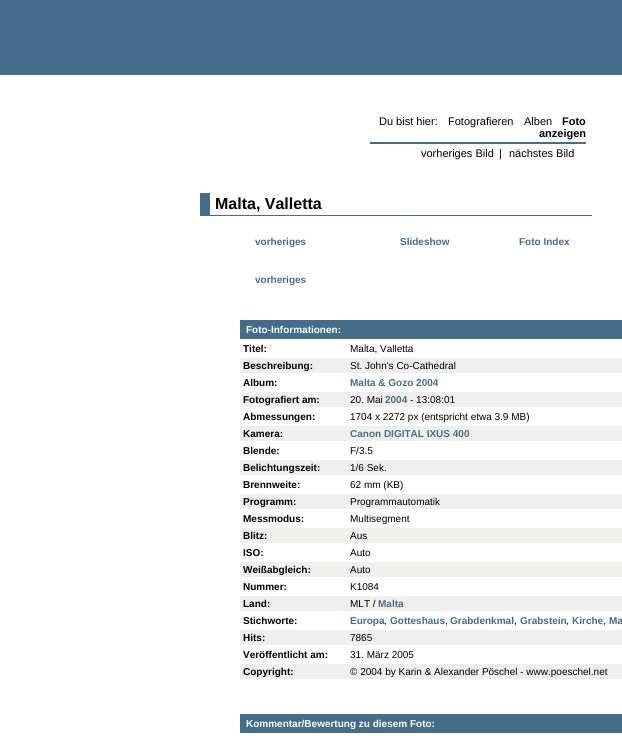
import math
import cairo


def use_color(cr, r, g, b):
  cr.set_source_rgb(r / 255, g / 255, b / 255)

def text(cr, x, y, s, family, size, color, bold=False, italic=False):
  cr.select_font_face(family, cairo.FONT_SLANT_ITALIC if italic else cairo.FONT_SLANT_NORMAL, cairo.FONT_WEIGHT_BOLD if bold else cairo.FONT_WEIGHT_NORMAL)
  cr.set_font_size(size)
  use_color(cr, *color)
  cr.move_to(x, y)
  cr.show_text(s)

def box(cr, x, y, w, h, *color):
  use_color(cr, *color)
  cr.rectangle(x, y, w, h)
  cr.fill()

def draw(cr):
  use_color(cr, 255, 255, 255)
  cr.paint()
  box(cr, 0, 0, 622, 75, 68, 109, 140)
  box(cr, 370, 142, 216, 2, 68, 109, 140)
  box(cr, 210, 215, 382, 1, 68, 109, 140)
  box(cr, 200, 193, 10, 23, 68, 109, 140)
  box(cr, 240, 320, 382, 19, 68, 109, 140)
  box(cr, 240, 358, 382, 15, 239, 240, 238)
  box(cr, 240, 392, 382, 15, 239, 240, 238)
  box(cr, 240, 426, 382, 15, 239, 240, 238)
  box(cr, 240, 460, 382, 15, 239, 240, 238)
  box(cr, 240, 494, 382, 15, 239, 240, 238)
  box(cr, 240, 528, 382, 15, 239, 240, 238)
  box(cr, 240, 562, 382, 15, 239, 240, 238)
  box(cr, 240, 596, 382, 15, 239, 240, 238)
  box(cr, 240, 630, 382, 15, 239, 240, 238)
  box(cr, 240, 664, 382, 15, 239, 240, 238)
  box(cr, 240, 714, 382, 19, 68, 109, 140)
  text(cr, 379, 125, "Du bist hier:", "Liberation Sans", 11, (0, 0, 0))
  text(cr, 448, 125, "Fotografieren", "Liberation Sans", 11, (0, 0, 0))
  text(cr, 524, 125, "Alben", "Liberation Sans", 11, (0, 0, 0))
  text(cr, 562, 125, "Foto", "Liberation Sans", 11, (0, 0, 0), bold=True)
  text(cr, 539, 137, "anzeigen", "Liberation Sans", 11, (0, 0, 0), bold=True)
  text(cr, 421, 157, "vorheriges Bild", "Liberation Sans", 11, (0, 0, 0))
  text(cr, 499, 157, "|", "Liberation Sans", 11, (0, 0, 0))
  text(cr, 509, 157, "nächstes Bild", "Liberation Sans", 11, (0, 0, 0))
  text(cr, 215, 209, "Malta, Valletta", "Liberation Sans", 16, (0, 0, 0), bold=True)
  text(cr, 255, 245, "vorheriges", "Liberation Sans", 10, (68, 109, 140), bold=True)
  text(cr, 400, 245, "Slideshow", "Liberation Sans", 10, (68, 109, 140), bold=True)
  text(cr, 519, 245, "Foto Index", "Liberation Sans", 10, (68, 109, 140), bold=True)
  text(cr, 255, 283, "vorheriges", "Liberation Sans", 10, (68, 109, 140), bold=True)
  text(cr, 246, 333, "Foto-Informationen:", "Liberation Sans", 10, (255, 255, 255), bold=True)
  text(cr, 243, 352, "Titel:", "Liberation Sans", 10, (0, 0, 0), bold=True)
  text(cr, 350, 352, "Malta, Valletta", "Liberation Sans", 10, (0, 0, 0))
  text(cr, 243, 369, "Beschreibung:", "Liberation Sans", 10, (0, 0, 0), bold=True)
  text(cr, 350, 369, "St. John's Co-Cathedral", "Liberation Sans", 10, (0, 0, 0))
  text(cr, 243, 386, "Album:", "Liberation Sans", 10, (0, 0, 0), bold=True)
  text(cr, 350, 386, "Malta & Gozo 2004", "Liberation Sans", 10, (68, 109, 140), bold=True)
  text(cr, 243, 403, "Fotografiert am:", "Liberation Sans", 10, (0, 0, 0), bold=True)
  text(cr, 350, 403, "20. Mai", "Liberation Sans", 10, (0, 0, 0))
  text(cr, 385, 403, "2004", "Liberation Sans", 10, (68, 109, 140), bold=True)
  text(cr, 410, 403, "- 13:08:01", "Liberation Sans", 10, (0, 0, 0))
  text(cr, 243, 420, "Abmessungen:", "Liberation Sans", 10, (0, 0, 0), bold=True)
  text(cr, 350, 420, "1704 x 2272 px (entspricht etwa 3.9 MB)", "Liberation Sans", 10, (0, 0, 0))
  text(cr, 243, 437, "Kamera:", "Liberation Sans", 10, (0, 0, 0), bold=True)
  text(cr, 350, 437, "Canon DIGITAL IXUS 400", "Liberation Sans", 10, (68, 109, 140), bold=True)
  text(cr, 243, 454, "Blende:", "Liberation Sans", 10, (0, 0, 0), bold=True)
  text(cr, 350, 454, "F/3.5", "Liberation Sans", 10, (0, 0, 0))
  text(cr, 243, 471, "Belichtungszeit:", "Liberation Sans", 10, (0, 0, 0), bold=True)
  text(cr, 350, 471, "1/6 Sek.", "Liberation Sans", 10, (0, 0, 0))
  text(cr, 243, 488, "Brennweite:", "Liberation Sans", 10, (0, 0, 0), bold=True)
  text(cr, 350, 488, "62 mm (KB)", "Liberation Sans", 10, (0, 0, 0))
  text(cr, 243, 505, "Programm:", "Liberation Sans", 10, (0, 0, 0), bold=True)
  text(cr, 350, 505, "Programmautomatik", "Liberation Sans", 10, (0, 0, 0))
  text(cr, 243, 522, "Messmodus:", "Liberation Sans", 10, (0, 0, 0), bold=True)
  text(cr, 350, 522, "Multisegment", "Liberation Sans", 10, (0, 0, 0))
  text(cr, 243, 539, "Blitz:", "Liberation Sans", 10, (0, 0, 0), bold=True)
  text(cr, 350, 539, "Aus", "Liberation Sans", 10, (0, 0, 0))
  text(cr, 243, 556, "ISO:", "Liberation Sans", 10, (0, 0, 0), bold=True)
  text(cr, 350, 556, "Auto", "Liberation Sans", 10, (0, 0, 0))
  text(cr, 243, 573, "Weißabgleich:", "Liberation Sans", 10, (0, 0, 0), bold=True)
  text(cr, 350, 573, "Auto", "Liberation Sans", 10, (0, 0, 0))
  text(cr, 243, 590, "Nummer:", "Liberation Sans", 10, (0, 0, 0), bold=True)
  text(cr, 350, 590, "K1084", "Liberation Sans", 10, (0, 0, 0))
  text(cr, 243, 607, "Land:", "Liberation Sans", 10, (0, 0, 0), bold=True)
  text(cr, 350, 607, "MLT /", "Liberation Sans", 10, (0, 0, 0))
  text(cr, 378, 607, "Malta", "Liberation Sans", 10, (68, 109, 140), bold=True)
  text(cr, 243, 624, "Stichworte:", "Liberation Sans", 10, (0, 0, 0), bold=True)
  text(cr, 350, 624, "Europa", "Liberation Sans", 10, (68, 109, 140), bold=True)
  text(cr, 384, 624, ",", "Liberation Sans", 10, (0, 0, 0))
  text(cr, 390, 624, "Gotteshaus", "Liberation Sans", 10, (68, 109, 140), bold=True)
  text(cr, 445, 624, ",", "Liberation Sans", 10, (0, 0, 0))
  text(cr, 450, 624, "Grabdenkmal", "Liberation Sans", 10, (68, 109, 140), bold=True)
  text(cr, 514, 624, ",", "Liberation Sans", 10, (0, 0, 0))
  text(cr, 520, 624, "Grabstein", "Liberation Sans", 10, (68, 109, 140), bold=True)
  text(cr, 566, 624, ",", "Liberation Sans", 10, (0, 0, 0))
  text(cr, 572, 624, "Kirche", "Liberation Sans", 10, (68, 109, 140), bold=True)
  text(cr, 603, 624, ",", "Liberation Sans", 10, (0, 0, 0))
  text(cr, 609, 624, "Ma", "Liberation Sans", 10, (68, 109, 140), bold=True)
  text(cr, 243, 641, "Hits:", "Liberation Sans", 10, (0, 0, 0), bold=True)
  text(cr, 350, 641, "7865", "Liberation Sans", 10, (0, 0, 0))
  text(cr, 243, 658, "Veröffentlicht am:", "Liberation Sans", 10, (0, 0, 0), bold=True)
  text(cr, 350, 658, "31. März 2005", "Liberation Sans", 10, (0, 0, 0))
  text(cr, 243, 675, "Copyright:", "Liberation Sans", 10, (0, 0, 0), bold=True)
  text(cr, 350, 675, "© 2004 by Karin & Alexander Pöschel - www.poeschel.net", "Liberation Sans", 10, (0, 0, 0))
  text(cr, 246, 727, "Kommentar/Bewertung zu diesem Foto:", "Liberation Sans", 10, (255, 255, 255), bold=True)


surface = cairo.ImageSurface(cairo.FORMAT_RGB24, 622, 738)
cr = cairo.Context(surface)
options = cairo.FontOptions()
options.set_hint_metrics(cairo.HINT_METRICS_OFF)
options.set_hint_style(cairo.HINT_STYLE_NONE)
cr.set_font_options(options)
cr.set_miter_limit(4)
draw(cr)
surface.write_to_png("out.png")
